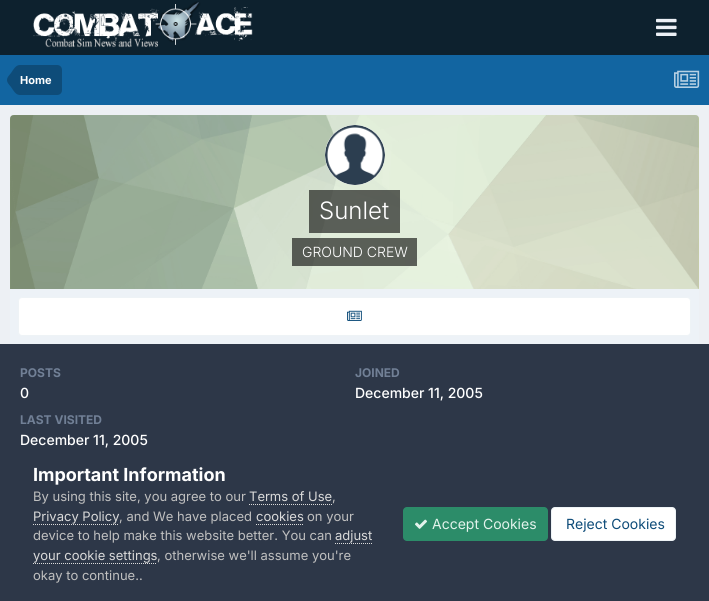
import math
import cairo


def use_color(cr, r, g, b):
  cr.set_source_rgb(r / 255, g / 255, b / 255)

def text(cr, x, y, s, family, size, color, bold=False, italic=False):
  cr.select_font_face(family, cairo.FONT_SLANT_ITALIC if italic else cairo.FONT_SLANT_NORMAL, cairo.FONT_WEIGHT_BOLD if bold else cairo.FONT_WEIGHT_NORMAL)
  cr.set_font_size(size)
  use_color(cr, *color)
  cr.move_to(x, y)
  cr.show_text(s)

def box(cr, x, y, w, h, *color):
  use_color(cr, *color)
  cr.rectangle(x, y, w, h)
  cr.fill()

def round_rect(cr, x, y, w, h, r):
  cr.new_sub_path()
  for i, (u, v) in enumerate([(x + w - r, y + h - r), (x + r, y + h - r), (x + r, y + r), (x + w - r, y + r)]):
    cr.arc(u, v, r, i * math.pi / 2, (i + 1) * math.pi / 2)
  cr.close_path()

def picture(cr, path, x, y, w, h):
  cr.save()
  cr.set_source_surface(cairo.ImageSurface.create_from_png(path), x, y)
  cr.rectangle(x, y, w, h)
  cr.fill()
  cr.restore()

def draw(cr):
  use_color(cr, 237, 240, 244)
  cr.paint()
  box(cr, 0, 0, 709, 55, 13, 33, 46)
  picture(cr, "img_01.png", 33, 1, 220, 47)
  picture(cr, "img_02.png", 656, 18, 21, 18)
  box(cr, 0, 55, 709, 50, 18, 101, 161)
  use_color(cr, 14, 76, 121)
  cr.new_path()
  cr.move_to(20, 65)
  cr.line_to(57, 65)
  cr.curve_to(60, 65, 62, 67, 62, 70)
  cr.line_to(62, 90)
  cr.curve_to(62, 93, 60, 95, 57, 95)
  cr.line_to(20, 95)
  cr.close_path()
  cr.fill()
  cr.new_path()
  cr.move_to(20, 80)
  cr.line_to(20, 95)
  cr.curve_to(15.5, 95, 13.5, 90.5, 11, 87)
  cr.curve_to(9.5, 85, 7, 83, 7, 80)
  cr.close_path()
  cr.move_to(20, 80)
  cr.line_to(7, 80)
  cr.curve_to(7, 77, 9.5, 75, 11, 73)
  cr.curve_to(13.5, 69.5, 15.5, 65, 20, 65)
  cr.close_path()
  cr.fill()
  picture(cr, "img_03.png", 674, 70, 26, 18)
  use_color(cr, 196, 255, 153)
  cr.new_path()
  cr.move_to(14, 115)
  cr.line_to(695, 115)
  cr.curve_to(697, 115, 699, 117, 699, 119)
  cr.line_to(699, 289)
  cr.line_to(10, 289)
  cr.line_to(10, 119)
  cr.curve_to(10, 117, 12, 115, 14, 115)
  cr.close_path()
  cr.fill()
  picture(cr, "img_04.png", 10, 115, 689, 174)
  use_color(cr, 255, 255, 255)
  cr.arc(355, 155, 30, 0, 2 * math.pi)
  cr.fill()
  picture(cr, "img_05.png", 325, 125, 60, 60)
  cr.set_source_rgba(0, 0, 0, 0.6)
  cr.rectangle(309, 190, 91, 43)
  cr.fill()
  cr.rectangle(292, 238, 125, 28)
  cr.fill()
  box(cr, 10, 289, 689, 55, 237, 242, 247)
  use_color(cr, 255, 255, 255)
  round_rect(cr, 18, 297, 673, 39, 4)
  cr.fill()
  round_rect(cr, 18.5, 297.5, 672, 38, 3.5)
  cr.set_source_rgba(0.055, 0.298, 0.475, 0.07)
  cr.set_line_width(1)
  cr.stroke()
  picture(cr, "img_06.png", 347, 310, 15, 11)
  box(cr, 0, 344, 709, 257, 45, 55, 72)
  cr.new_path()
  cr.move_to(249, 504.5)
  cr.line_to(332, 504.5)
  use_color(cr, 218, 218, 218)
  cr.set_dash([1, 1])
  cr.stroke()
  cr.new_path()
  cr.move_to(33, 524.5)
  cr.line_to(119, 524.5)
  cr.stroke()
  cr.new_path()
  cr.move_to(256, 524.5)
  cr.line_to(304, 524.5)
  cr.stroke()
  cr.new_path()
  cr.move_to(335, 543.5)
  cr.line_to(373, 543.5)
  cr.stroke()
  cr.new_path()
  cr.move_to(33, 563.5)
  cr.line_to(157, 563.5)
  cr.stroke()
  use_color(cr, 44, 140, 105)
  round_rect(cr, 403, 507, 145, 34, 4)
  cr.fill()
  picture(cr, "img_07.png", 415, 519, 12, 10)
  use_color(cr, 255, 255, 255)
  round_rect(cr, 551, 507, 125, 34, 4)
  cr.fill()
  round_rect(cr, 551.5, 507.5, 124, 33, 3.5)
  cr.set_source_rgba(0.055, 0.298, 0.475, 0.07)
  cr.set_dash([])
  cr.stroke()
  text(cr, 20, 84, "Home", "Inter", 11, (255, 255, 255), bold=True)
  text(cr, 319, 219, "Sunlet", "Inter Light", 24, (255, 255, 255))
  text(cr, 302, 257, "GROUND CREW", "Inter Light", 14, (255, 255, 255))
  text(cr, 20, 377, "POSTS", "Inter", 12, (113, 128, 150), bold=True)
  text(cr, 20, 398, "0", "Inter Medium", 14, (255, 255, 255))
  text(cr, 355, 377, "JOINED", "Inter", 12, (113, 128, 150), bold=True)
  text(cr, 355, 398, "December 11, 2005", "Inter Medium", 14, (255, 255, 255))
  text(cr, 20, 424, "LAST VISITED", "Inter", 12, (113, 128, 150), bold=True)
  text(cr, 20, 445, "December 11, 2005", "Inter Medium", 14, (255, 255, 255))
  text(cr, 33, 481, "Important Information", "Inter", 18, (255, 255, 255), bold=True)
  text(cr, 33, 501, "By using this site, you agree to our", "Inter", 13, (192, 192, 192))
  text(cr, 249, 501, "Terms of Use", "Inter", 13, (218, 218, 218))
  text(cr, 332, 501, ",", "Inter", 13, (192, 192, 192))
  text(cr, 33, 521, "Privacy Policy", "Inter", 13, (218, 218, 218))
  text(cr, 119, 521, ", and We have placed", "Inter", 13, (192, 192, 192))
  text(cr, 256, 521, "cookies", "Inter", 13, (218, 218, 218))
  text(cr, 307, 521, "on your", "Inter", 13, (192, 192, 192))
  text(cr, 33, 540, "device to help make this website better. You can", "Inter", 13, (192, 192, 192))
  text(cr, 335, 540, "adjust", "Inter", 13, (218, 218, 218))
  text(cr, 33, 560, "your cookie settings", "Inter", 13, (218, 218, 218))
  text(cr, 157, 560, ", otherwise we'll assume you're", "Inter", 13, (192, 192, 192))
  text(cr, 33, 580, "okay to continue..", "Inter", 13, (192, 192, 192))
  text(cr, 432, 529, "Accept Cookies", "Inter", 14, (227, 243, 236))
  text(cr, 566, 529, "Reject Cookies", "Inter", 14, (14, 76, 121))


surface = cairo.ImageSurface(cairo.FORMAT_RGB24, 709, 601)
cr = cairo.Context(surface)
options = cairo.FontOptions()
options.set_hint_metrics(cairo.HINT_METRICS_OFF)
options.set_hint_style(cairo.HINT_STYLE_NONE)
cr.set_font_options(options)
cr.set_miter_limit(4)
draw(cr)
surface.write_to_png("out.png")
